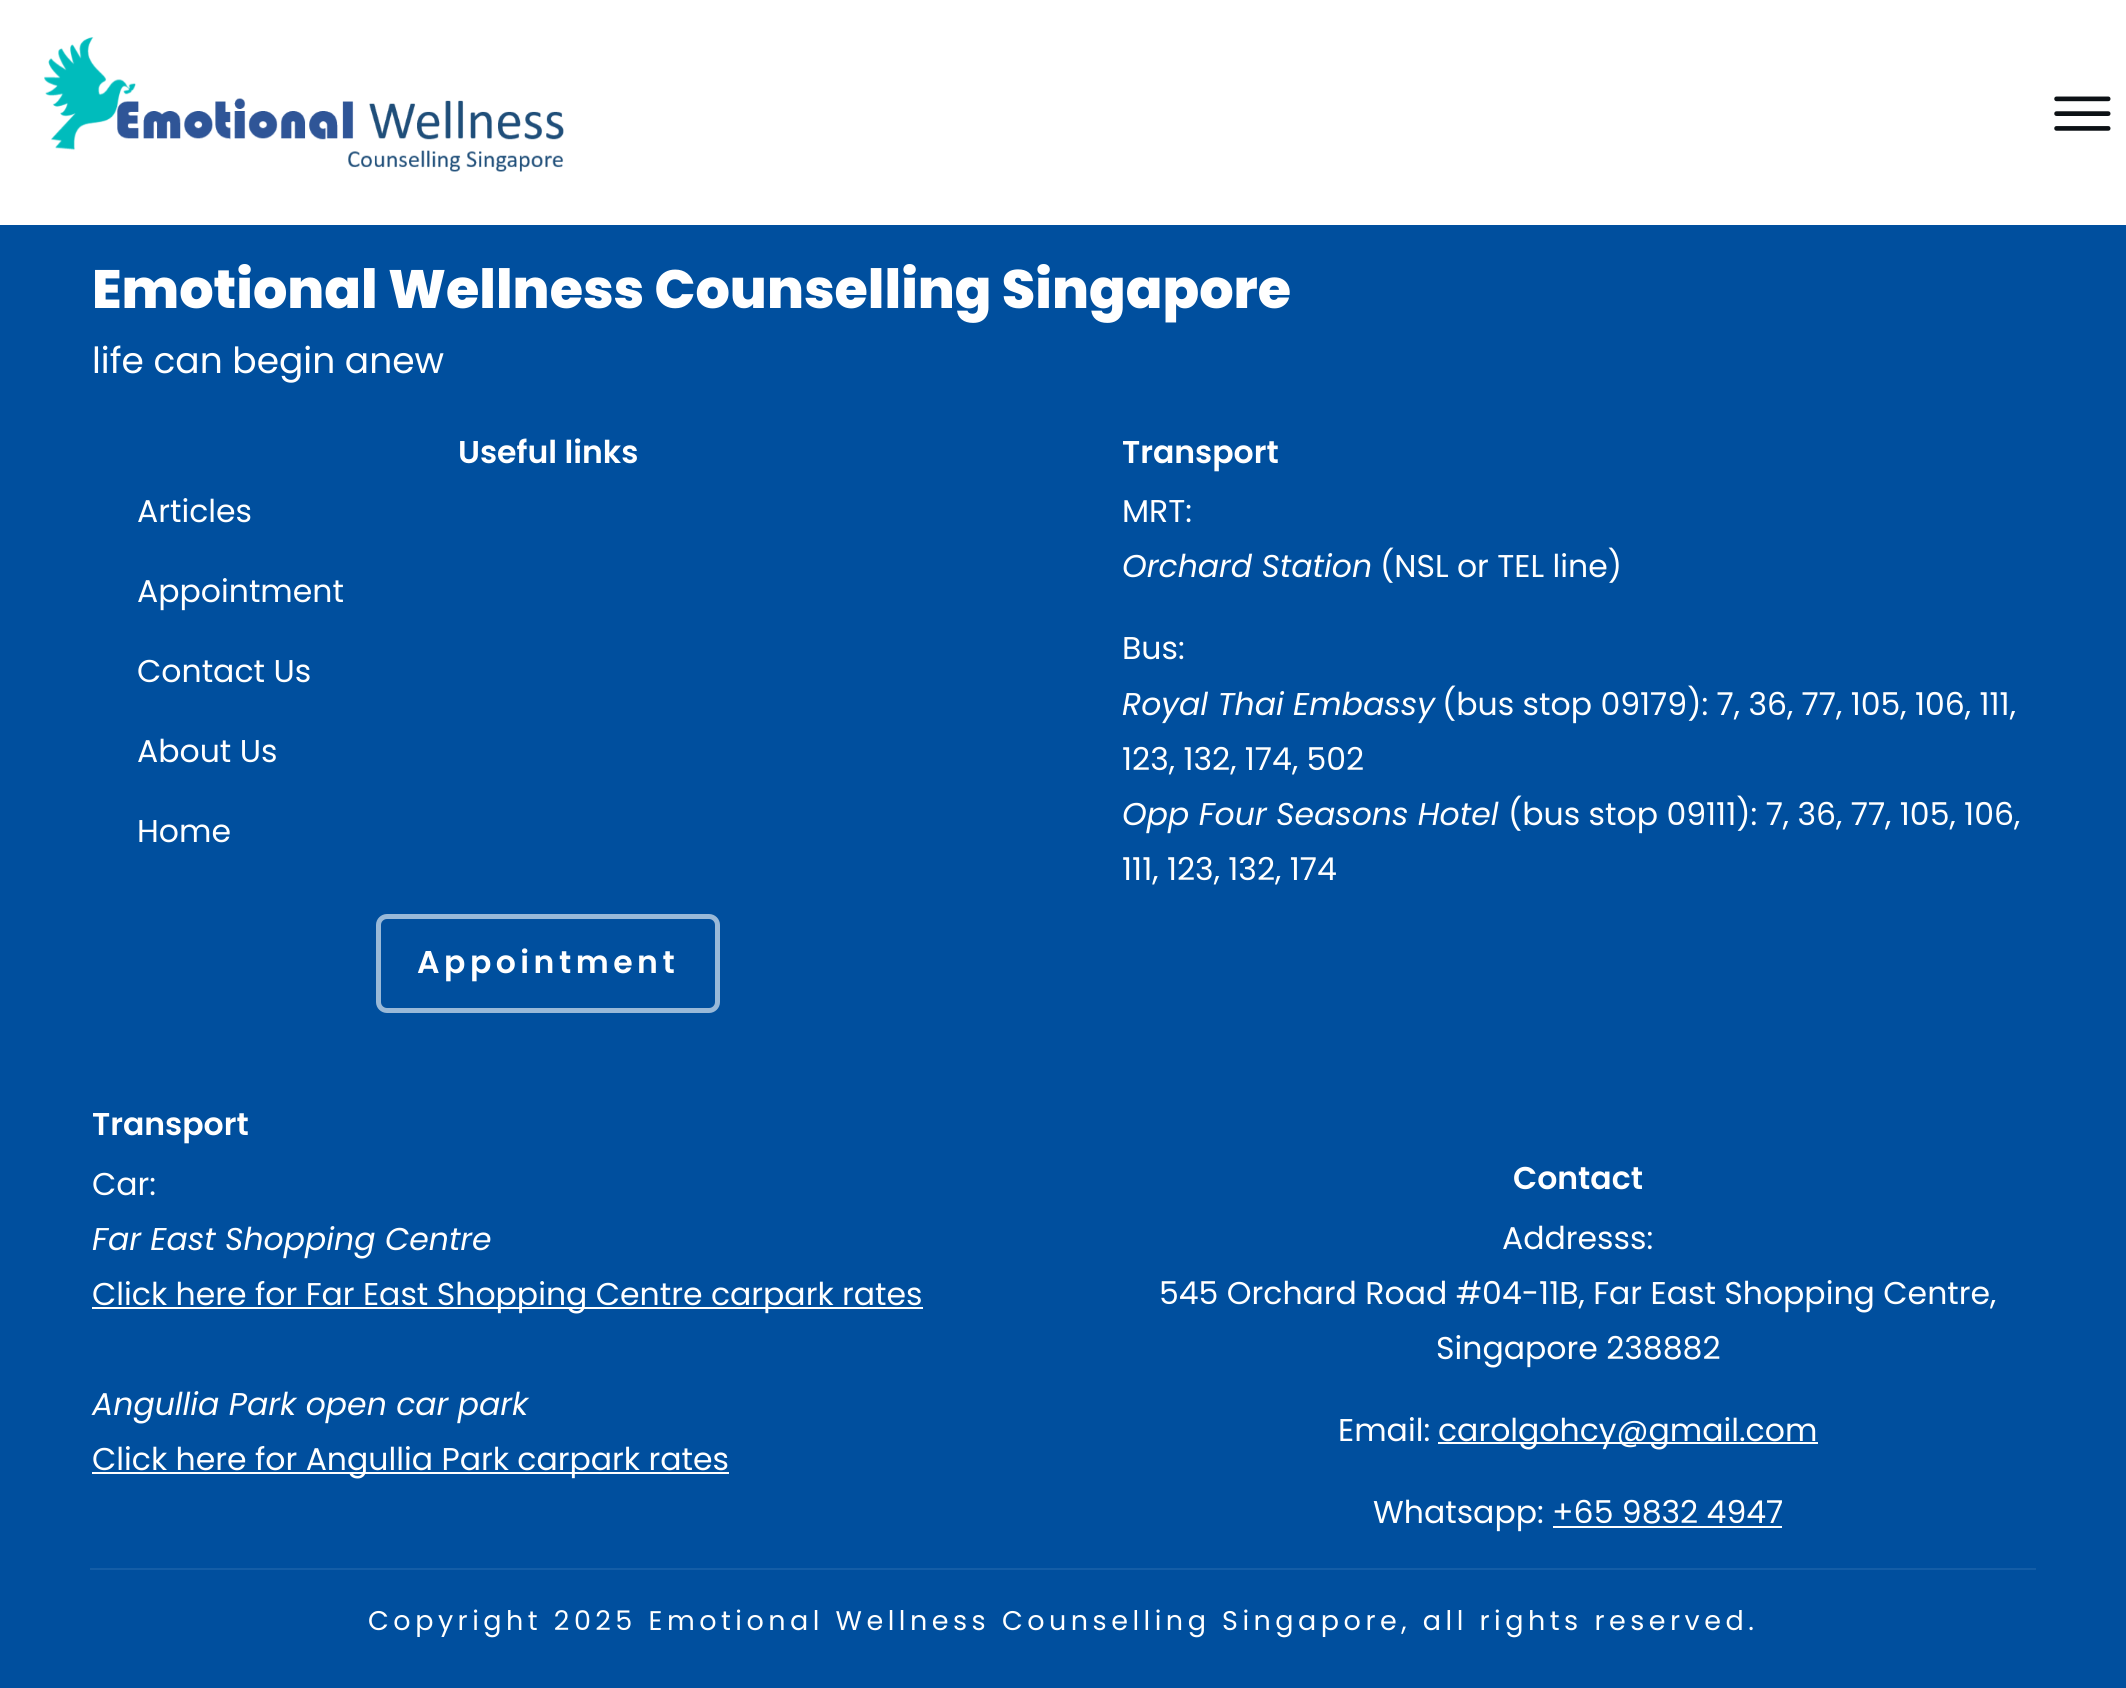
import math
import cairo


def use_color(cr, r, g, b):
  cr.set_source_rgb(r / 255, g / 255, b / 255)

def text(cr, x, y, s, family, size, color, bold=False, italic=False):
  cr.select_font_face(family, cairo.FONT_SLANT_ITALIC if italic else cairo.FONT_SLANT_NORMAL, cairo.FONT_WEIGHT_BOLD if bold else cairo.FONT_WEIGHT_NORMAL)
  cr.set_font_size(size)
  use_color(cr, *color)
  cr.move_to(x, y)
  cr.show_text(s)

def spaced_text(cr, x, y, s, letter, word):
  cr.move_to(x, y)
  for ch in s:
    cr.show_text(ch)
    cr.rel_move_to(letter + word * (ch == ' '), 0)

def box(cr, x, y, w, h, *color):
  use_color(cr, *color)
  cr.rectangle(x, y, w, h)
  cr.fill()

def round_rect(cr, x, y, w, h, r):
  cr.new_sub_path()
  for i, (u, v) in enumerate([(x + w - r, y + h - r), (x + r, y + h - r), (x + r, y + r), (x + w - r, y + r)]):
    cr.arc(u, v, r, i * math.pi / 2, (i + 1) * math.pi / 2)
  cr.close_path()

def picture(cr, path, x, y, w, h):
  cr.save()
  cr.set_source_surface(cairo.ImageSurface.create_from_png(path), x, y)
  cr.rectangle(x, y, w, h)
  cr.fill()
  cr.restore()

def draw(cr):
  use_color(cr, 0, 79, 158)
  cr.paint()
  box(cr, 0, 0, 2126, 225, 255, 255, 255)
  picture(cr, "img_01.png", 44, 37, 520, 135)
  picture(cr, "img_02.png", 2054, 96, 57, 35)
  box(cr, 90, 1568, 1946, 2, 20, 93, 166)
  round_rect(cr, 378.5, 916.5, 339, 94, 8.5)
  use_color(cr, 153, 185, 216)
  cr.set_line_width(5)
  cr.stroke()
  box(cr, 92, 1307, 831, 2, 255, 255, 255)
  box(cr, 92, 1472, 637, 2, 255, 255, 255)
  box(cr, 1438, 1442, 380, 2, 255, 255, 255)
  box(cr, 1553, 1526, 229, 2, 255, 255, 255)
  text(cr, 92, 308, "Emotional Wellness Counselling Singapore", "Poppins ExtraBold", 54, (255, 255, 255))
  text(cr, 92, 373, "life can begin anew", "Poppins", 36, (255, 255, 255))
  text(cr, 458, 463, "Useful links", "Poppins SemiBold", 31.5, (255, 255, 255))
  text(cr, 137, 522, "Articles", "Poppins", 31.5, (255, 255, 255))
  text(cr, 137, 602, "Appointment", "Poppins", 31.5, (255, 255, 255))
  text(cr, 137, 682, "Contact Us", "Poppins", 31.5, (255, 255, 255))
  text(cr, 137, 762, "About Us", "Poppins", 31.5, (255, 255, 255))
  text(cr, 137, 842, "Home", "Poppins", 31.5, (255, 255, 255))
  cr.select_font_face("Poppins SemiBold")
  spaced_text(cr, 417, 973, "Appointment", 4.5, 0)
  text(cr, 1122, 463, "Transport", "Poppins SemiBold", 31.5, (255, 255, 255))
  text(cr, 1122, 522, "MRT:", "Poppins", 31.5, (255, 255, 255))
  text(cr, 1122, 577, "Orchard Station", "Poppins", 31.5, (255, 255, 255), italic=True)
  text(cr, 1380, 577, "(NSL or TEL line)", "Poppins", 31.5, (255, 255, 255))
  text(cr, 1122, 659, "Bus:", "Poppins", 31.5, (255, 255, 255))
  text(cr, 1122, 715, "Royal Thai Embassy", "Poppins", 31.5, (255, 255, 255), italic=True)
  text(cr, 1442, 715, "(bus stop 09179): 7, 36, 77, 105, 106, 111,", "Poppins", 31.5, (255, 255, 255))
  text(cr, 1122, 770, "123, 132, 174, 502", "Poppins", 31.5, (255, 255, 255))
  text(cr, 1122, 825, "Opp Four Seasons Hotel", "Poppins", 31.5, (255, 255, 255), italic=True)
  text(cr, 1508, 825, "(bus stop 09111): 7, 36, 77, 105, 106,", "Poppins", 31.5, (255, 255, 255))
  text(cr, 1122, 880, "111, 123, 132, 174", "Poppins", 31.5, (255, 255, 255))
  text(cr, 92, 1135, "Transport", "Poppins SemiBold", 31.5, (255, 255, 255))
  text(cr, 92, 1195, "Car:", "Poppins", 31.5, (255, 255, 255))
  text(cr, 92, 1250, "Far East Shopping Centre", "Poppins", 31.5, (255, 255, 255), italic=True)
  text(cr, 92, 1305, "Click here for Far East Shopping Centre carpark rates", "Poppins", 31.5, (255, 255, 255))
  text(cr, 92, 1415, "Angullia Park open car park", "Poppins", 31.5, (255, 255, 255), italic=True)
  text(cr, 92, 1470, "Click here for Angullia Park carpark rates", "Poppins", 31.5, (255, 255, 255))
  text(cr, 1513, 1189, "Contact", "Poppins SemiBold", 31.5, (255, 255, 255))
  text(cr, 1502, 1249, "Addresss:", "Poppins", 31.5, (255, 255, 255))
  text(cr, 1159, 1304, "545 Orchard Road #04-11B, Far East Shopping Centre,", "Poppins", 31.5, (255, 255, 255))
  text(cr, 1436, 1359, "Singapore 238882", "Poppins", 31.5, (255, 255, 255))
  text(cr, 1338, 1441, "Email:", "Poppins", 31.5, (255, 255, 255))
  text(cr, 1438, 1441, "carolgohcy@gmail.com", "Poppins", 31.5, (255, 255, 255))
  text(cr, 1373, 1523, "Whatsapp: +65 9832 4947", "Poppins", 31.5, (255, 255, 255))
  cr.set_font_size(27)
  spaced_text(cr, 368, 1630, "Copyright 2025 Emotional Wellness Counselling Singapore, all rights reserved.", 4.5, 0)


surface = cairo.ImageSurface(cairo.FORMAT_RGB24, 2126, 1688)
cr = cairo.Context(surface)
options = cairo.FontOptions()
options.set_hint_metrics(cairo.HINT_METRICS_OFF)
options.set_hint_style(cairo.HINT_STYLE_NONE)
cr.set_font_options(options)
cr.set_miter_limit(4)
draw(cr)
surface.write_to_png("out.png")
